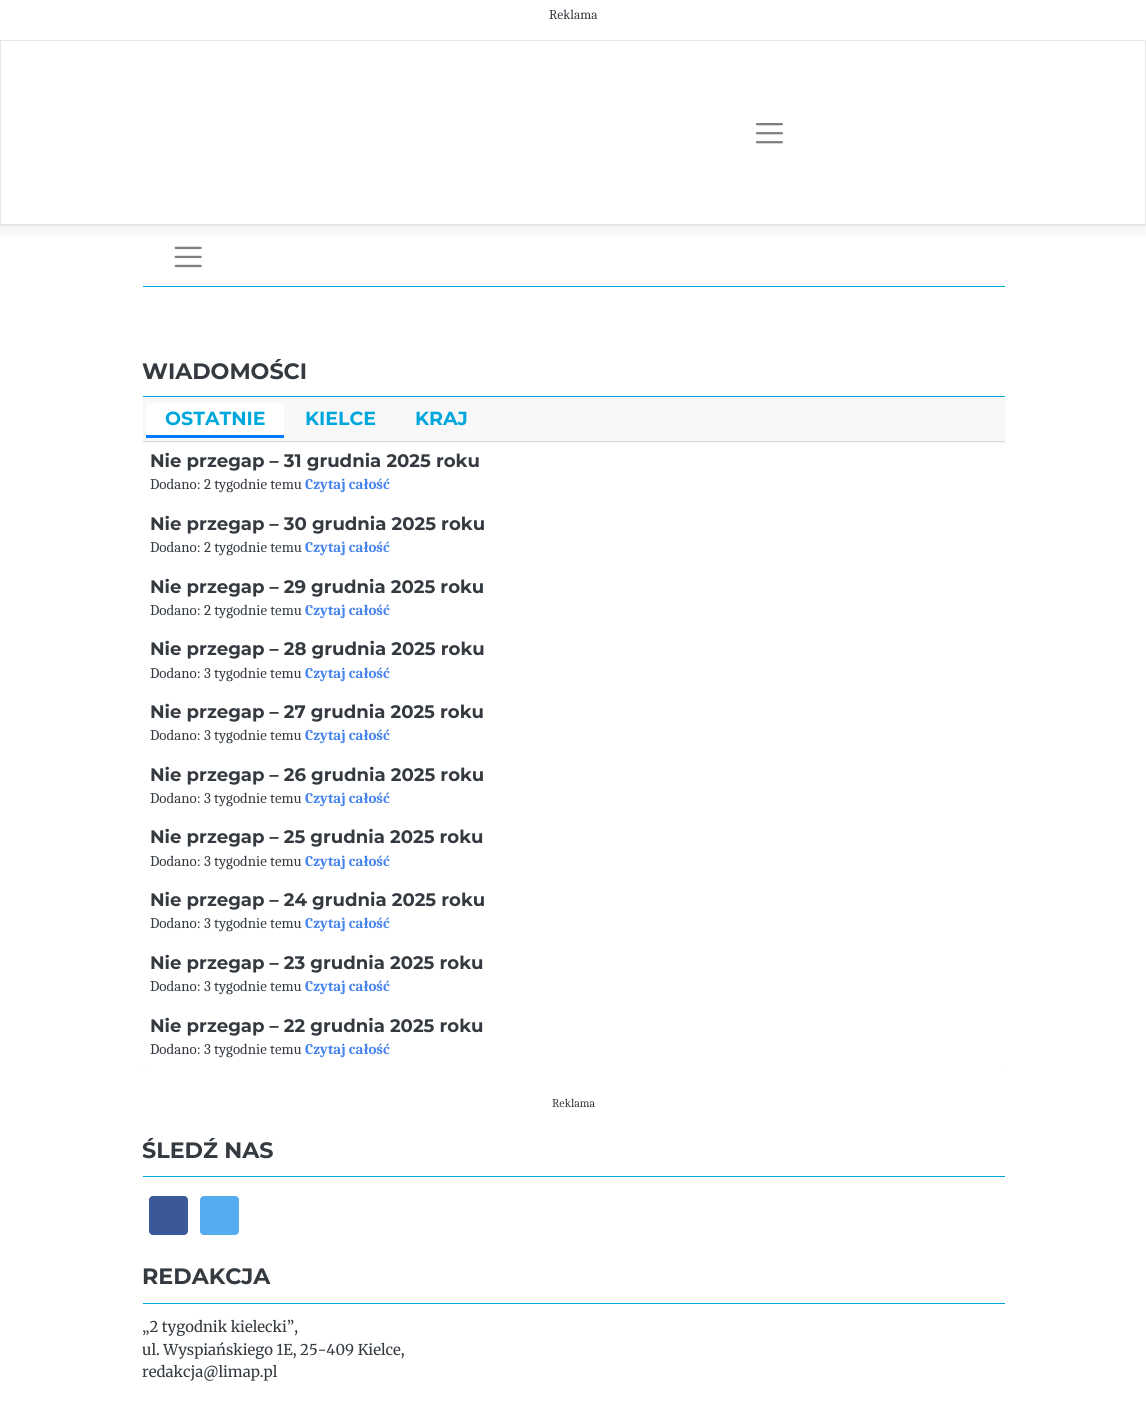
import math
import cairo


def use_color(cr, r, g, b):
  cr.set_source_rgb(r / 255, g / 255, b / 255)

def text(cr, x, y, s, family, size, color, bold=False, italic=False):
  cr.select_font_face(family, cairo.FONT_SLANT_ITALIC if italic else cairo.FONT_SLANT_NORMAL, cairo.FONT_WEIGHT_BOLD if bold else cairo.FONT_WEIGHT_NORMAL)
  cr.set_font_size(size)
  use_color(cr, *color)
  cr.move_to(x, y)
  cr.show_text(s)

def box(cr, x, y, w, h, *color):
  use_color(cr, *color)
  cr.rectangle(x, y, w, h)
  cr.fill()

def round_rect(cr, x, y, w, h, r):
  cr.new_sub_path()
  for i, (u, v) in enumerate([(x + w - r, y + h - r), (x + r, y + h - r), (x + r, y + r), (x + w - r, y + r)]):
    cr.arc(u, v, r, i * math.pi / 2, (i + 1) * math.pi / 2)
  cr.close_path()

def shadow(cr, x, y, w, h, r, blur, alpha):
  cr.push_group_with_content(cairo.CONTENT_ALPHA)
  cr.set_operator(cairo.OPERATOR_SOURCE)
  for i in range(15, -16, -2):
    e = blur * i / 6
    if min(w, h) + 2 * e > 0:
      cr.set_source_rgba(0, 0, 0, alpha * math.erfc((i - 1) / 8.5) / 2)
      round_rect(cr, x - e, y - e, w + 2 * e, h + 2 * e, max(0, min(r + e + blur * .6, min(w, h) / 2 + e)))
      cr.fill()
  cr.mask(cr.pop_group())

def picture(cr, path, x, y, w, h):
  cr.save()
  cr.set_source_surface(cairo.ImageSurface.create_from_png(path), x, y)
  cr.rectangle(x, y, w, h)
  cr.fill()
  cr.restore()

def draw(cr):
  use_color(cr, 255, 255, 255)
  cr.paint()
  cr.save()
  cr.rectangle(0, 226, 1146, 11)
  cr.clip()
  use_color(cr, 0, 0, 0)
  shadow(cr, 0, 49, 1146, 186, 0, 8.5, 0.05)
  cr.restore()
  box(cr, 1, 224, 1144, 1, 230, 230, 230)
  cr.rectangle(0.5, 40.5, 1145, 185)
  cr.set_line_width(1)
  cr.stroke()
  picture(cr, "img_01.png", 755, 123, 28, 21)
  box(cr, 143, 286, 862, 1, 0, 167, 220)
  picture(cr, "img_02.png", 174, 246, 28, 22)
  box(cr, 143, 396, 862, 1, 0, 167, 220)
  box(cr, 143, 398, 862, 672, 247, 248, 249)
  use_color(cr, 255, 255, 255)
  round_rect(cr, 143, 398, 862, 672, 4)
  cr.fill()
  cr.set_source_rgba(0, 0, 0, 0.03)
  cr.rectangle(143, 398, 862, 45)
  cr.fill()
  box(cr, 143, 441, 862, 1, 216, 216, 216)
  use_color(cr, 255, 255, 255)
  cr.new_path()
  cr.move_to(150, 403)
  cr.line_to(280, 403)
  cr.curve_to(282, 403, 284, 405, 284, 407)
  cr.line_to(284, 438)
  cr.line_to(146, 438)
  cr.line_to(146, 407)
  cr.curve_to(146, 405, 148, 403, 150, 403)
  cr.close_path()
  cr.fill()
  box(cr, 146, 435, 138, 3, 0, 123, 255)
  box(cr, 143, 1176, 862, 1, 0, 167, 220)
  use_color(cr, 59, 89, 152)
  round_rect(cr, 149, 1196, 39, 39, 4)
  cr.fill()
  use_color(cr, 85, 172, 238)
  round_rect(cr, 200, 1196, 39, 39, 4)
  cr.fill()
  box(cr, 143, 1303, 862, 1, 0, 167, 220)
  text(cr, 549, 19, "Reklama", "Caladea", 13.5, (52, 58, 64))
  text(cr, 142, 379, "WIADOMOŚCI", "Montserrat", 22.25, (52, 58, 64), bold=True)
  text(cr, 165, 425, "OSTATNIE", "Montserrat", 19, (0, 167, 220), bold=True)
  text(cr, 305, 425, "KIELCE", "Montserrat", 19, (0, 167, 220), bold=True)
  text(cr, 415, 425, "KRAJ", "Montserrat", 19, (0, 167, 220), bold=True)
  text(cr, 150, 467, "Nie przegap – 31 grudnia 2025 roku", "Montserrat", 18.1, (52, 58, 64), bold=True)
  text(cr, 150, 489, "Dodano: 2 tygodnie temu", "Caladea", 14.9, (52, 58, 64))
  text(cr, 305, 489, "Czytaj całość", "Caladea", 14.9, (69, 130, 236), bold=True)
  text(cr, 150, 530, "Nie przegap – 30 grudnia 2025 roku", "Montserrat", 18.1, (52, 58, 64), bold=True)
  text(cr, 150, 552, "Dodano: 2 tygodnie temu", "Caladea", 14.9, (52, 58, 64))
  text(cr, 305, 552, "Czytaj całość", "Caladea", 14.9, (69, 130, 236), bold=True)
  text(cr, 150, 593, "Nie przegap – 29 grudnia 2025 roku", "Montserrat", 18.1, (52, 58, 64), bold=True)
  text(cr, 150, 615, "Dodano: 2 tygodnie temu", "Caladea", 14.9, (52, 58, 64))
  text(cr, 305, 615, "Czytaj całość", "Caladea", 14.9, (69, 130, 236), bold=True)
  text(cr, 150, 655, "Nie przegap – 28 grudnia 2025 roku", "Montserrat", 18.1, (52, 58, 64), bold=True)
  text(cr, 150, 678, "Dodano: 3 tygodnie temu", "Caladea", 14.9, (52, 58, 64))
  text(cr, 305, 678, "Czytaj całość", "Caladea", 14.9, (69, 130, 236), bold=True)
  text(cr, 150, 718, "Nie przegap – 27 grudnia 2025 roku", "Montserrat", 18.1, (52, 58, 64), bold=True)
  text(cr, 150, 740, "Dodano: 3 tygodnie temu", "Caladea", 14.9, (52, 58, 64))
  text(cr, 305, 740, "Czytaj całość", "Caladea", 14.9, (69, 130, 236), bold=True)
  text(cr, 150, 781, "Nie przegap – 26 grudnia 2025 roku", "Montserrat", 18.1, (52, 58, 64), bold=True)
  text(cr, 150, 803, "Dodano: 3 tygodnie temu", "Caladea", 14.9, (52, 58, 64))
  text(cr, 305, 803, "Czytaj całość", "Caladea", 14.9, (69, 130, 236), bold=True)
  text(cr, 150, 843, "Nie przegap – 25 grudnia 2025 roku", "Montserrat", 18.1, (52, 58, 64), bold=True)
  text(cr, 150, 866, "Dodano: 3 tygodnie temu", "Caladea", 14.9, (52, 58, 64))
  text(cr, 305, 866, "Czytaj całość", "Caladea", 14.9, (69, 130, 236), bold=True)
  text(cr, 150, 906, "Nie przegap – 24 grudnia 2025 roku", "Montserrat", 18.1, (52, 58, 64), bold=True)
  text(cr, 150, 928, "Dodano: 3 tygodnie temu", "Caladea", 14.9, (52, 58, 64))
  text(cr, 305, 928, "Czytaj całość", "Caladea", 14.9, (69, 130, 236), bold=True)
  text(cr, 150, 969, "Nie przegap – 23 grudnia 2025 roku", "Montserrat", 18.1, (52, 58, 64), bold=True)
  text(cr, 150, 991, "Dodano: 3 tygodnie temu", "Caladea", 14.9, (52, 58, 64))
  text(cr, 305, 991, "Czytaj całość", "Caladea", 14.9, (69, 130, 236), bold=True)
  text(cr, 150, 1032, "Nie przegap – 22 grudnia 2025 roku", "Montserrat", 18.1, (52, 58, 64), bold=True)
  text(cr, 150, 1054, "Dodano: 3 tygodnie temu", "Caladea", 14.9, (52, 58, 64))
  text(cr, 305, 1054, "Czytaj całość", "Caladea", 14.9, (69, 130, 236), bold=True)
  text(cr, 552, 1107, "Reklama", "Caladea", 12, (52, 58, 64))
  text(cr, 142, 1158, "ŚLEDŹ NAS", "Montserrat", 22.25, (52, 58, 64), bold=True)
  text(cr, 142, 1284, "REDAKCJA", "Montserrat", 22.25, (52, 58, 64), bold=True)
  text(cr, 142, 1332, "„2 tygodnik kielecki”,", "Merriweather", 14.9, (52, 58, 64))
  text(cr, 142, 1355, "ul. Wyspiańskiego 1E, 25-409 Kielce,", "Merriweather", 14.9, (52, 58, 64))
  text(cr, 142, 1377, "redakcja@limap.pl", "Merriweather", 14.9, (52, 58, 64))


surface = cairo.ImageSurface(cairo.FORMAT_RGB24, 1146, 1417)
cr = cairo.Context(surface)
options = cairo.FontOptions()
options.set_hint_metrics(cairo.HINT_METRICS_OFF)
options.set_hint_style(cairo.HINT_STYLE_NONE)
cr.set_font_options(options)
cr.set_miter_limit(4)
draw(cr)
surface.write_to_png("out.png")
